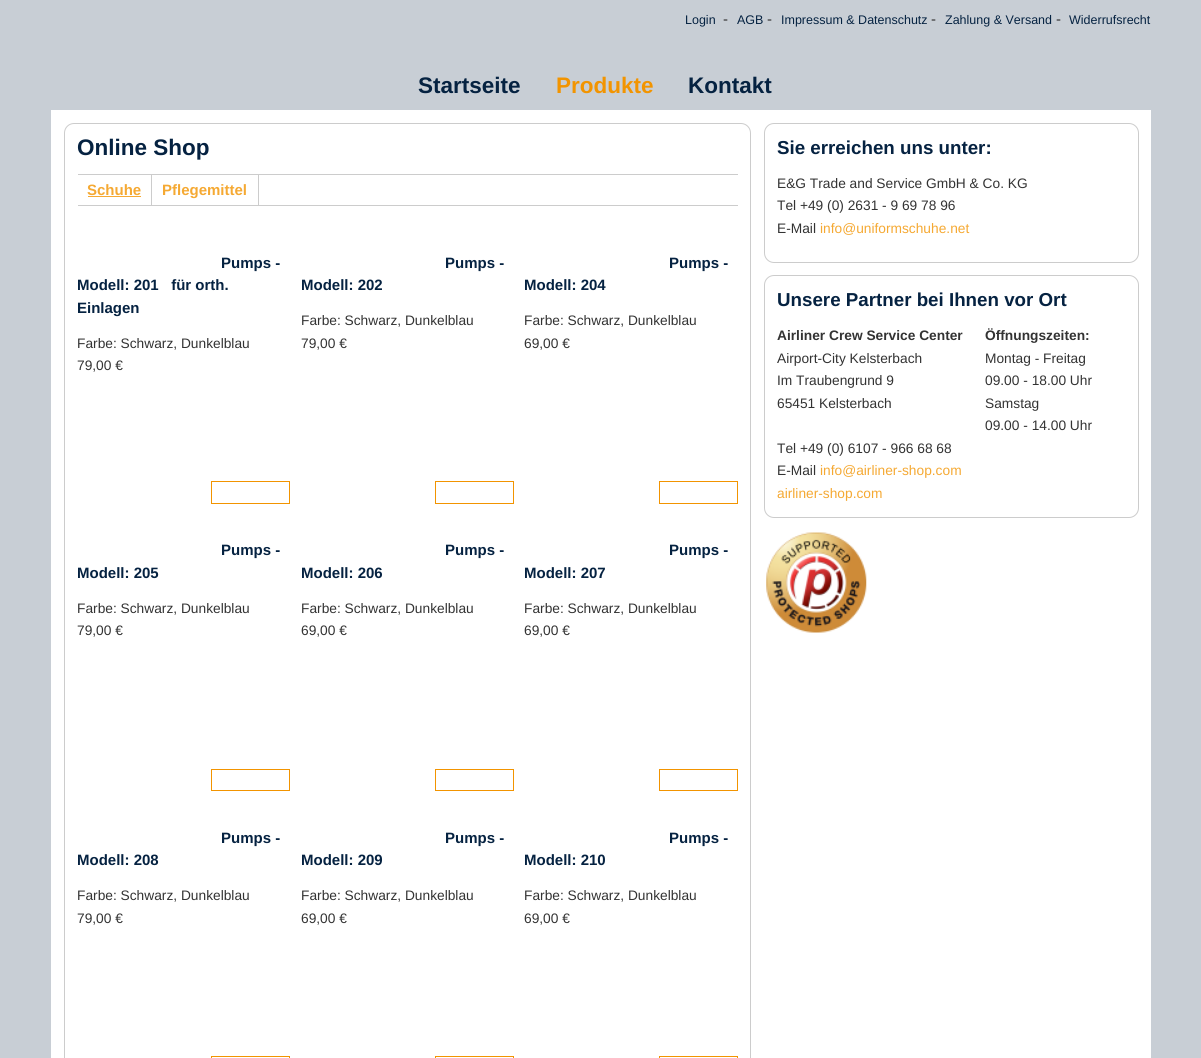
import math
import cairo


def use_color(cr, r, g, b):
  cr.set_source_rgb(r / 255, g / 255, b / 255)

def text(cr, x, y, s, family, size, color, bold=False, italic=False):
  cr.select_font_face(family, cairo.FONT_SLANT_ITALIC if italic else cairo.FONT_SLANT_NORMAL, cairo.FONT_WEIGHT_BOLD if bold else cairo.FONT_WEIGHT_NORMAL)
  cr.set_font_size(size)
  use_color(cr, *color)
  cr.move_to(x, y)
  cr.show_text(s)

def box(cr, x, y, w, h, *color):
  use_color(cr, *color)
  cr.rectangle(x, y, w, h)
  cr.fill()

def round_rect(cr, x, y, w, h, r):
  cr.new_sub_path()
  for i, (u, v) in enumerate([(x + w - r, y + h - r), (x + r, y + h - r), (x + r, y + r), (x + w - r, y + r)]):
    cr.arc(u, v, r, i * math.pi / 2, (i + 1) * math.pi / 2)
  cr.close_path()

def picture(cr, path, x, y, w, h):
  cr.save()
  cr.set_source_surface(cairo.ImageSurface.create_from_png(path), x, y)
  cr.rectangle(x, y, w, h)
  cr.fill()
  cr.restore()

def draw(cr):
  use_color(cr, 200, 206, 213)
  cr.paint()
  box(cr, 51, 110, 1100, 948, 255, 255, 255)
  round_rect(cr, 64.5, 123.5, 686, 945, 9.5)
  use_color(cr, 204, 204, 204)
  cr.set_line_width(1)
  cr.stroke()
  box(cr, 78, 174, 660, 1, 204, 204, 204)
  box(cr, 78, 205, 660, 1, 204, 204, 204)
  box(cr, 151, 175, 1, 30, 204, 204, 204)
  box(cr, 88, 196, 53, 1, 245, 169, 51)
  box(cr, 258, 175, 1, 30, 204, 204, 204)
  cr.rectangle(211.5, 481.5, 78, 22)
  use_color(cr, 242, 148, 0)
  cr.stroke()
  cr.rectangle(435.5, 481.5, 78, 22)
  cr.stroke()
  cr.rectangle(659.5, 481.5, 78, 22)
  cr.stroke()
  cr.rectangle(211.5, 769.5, 78, 21)
  cr.stroke()
  cr.rectangle(435.5, 769.5, 78, 21)
  cr.stroke()
  cr.rectangle(659.5, 769.5, 78, 21)
  cr.stroke()
  cr.rectangle(211.5, 1056.5, 78, 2)
  cr.stroke()
  cr.rectangle(435.5, 1056.5, 78, 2)
  cr.stroke()
  cr.rectangle(659.5, 1056.5, 78, 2)
  cr.stroke()
  round_rect(cr, 764.5, 123.5, 374, 139, 9.5)
  use_color(cr, 204, 204, 204)
  cr.stroke()
  round_rect(cr, 764.5, 275.5, 374, 242, 9.5)
  cr.stroke()
  picture(cr, "img_01.png", 766, 532, 101, 101)
  text(cr, 685, 24, "Login", "Liberation Sans", 12.5, (5, 34, 65))
  text(cr, 723, 24, "-", "Liberation Sans", 15, (51, 51, 51))
  text(cr, 737, 24, "AGB", "Liberation Sans", 12.5, (5, 34, 65))
  text(cr, 767, 24, "-", "Liberation Sans", 15, (51, 51, 51))
  text(cr, 781, 24, "Impressum & Datenschutz", "Liberation Sans", 12.5, (5, 34, 65))
  text(cr, 931, 24, "-", "Liberation Sans", 15, (51, 51, 51))
  text(cr, 945, 24, "Zahlung & Versand", "Liberation Sans", 12.5, (5, 34, 65))
  text(cr, 1056, 24, "-", "Liberation Sans", 15, (51, 51, 51))
  text(cr, 1069, 24, "Widerrufsrecht", "Liberation Sans", 12.5, (5, 34, 65))
  text(cr, 418, 93, "Startseite", "Liberation Sans", 22.5, (5, 34, 65), bold=True)
  text(cr, 556, 93, "Produkte", "Liberation Sans", 22.5, (242, 148, 0), bold=True)
  text(cr, 688, 93, "Kontakt", "Liberation Sans", 22.5, (5, 34, 65), bold=True)
  text(cr, 77, 155, "Online Shop", "Liberation Sans", 22.5, (5, 34, 65), bold=True)
  text(cr, 87, 195, "Schuhe", "Liberation Sans", 15, (245, 169, 51), bold=True)
  text(cr, 162, 195, "Pflegemittel", "Liberation Sans", 15, (245, 169, 51), bold=True)
  text(cr, 221, 268, "Pumps -", "Liberation Sans", 15, (5, 34, 65), bold=True)
  text(cr, 77, 290, "Modell: 201   für orth.", "Liberation Sans", 15, (5, 34, 65), bold=True)
  text(cr, 77, 313, "Einlagen", "Liberation Sans", 15, (5, 34, 65), bold=True)
  text(cr, 77, 348, "Farbe: Schwarz, Dunkelblau", "Liberation Sans", 13.75, (51, 51, 51))
  text(cr, 77, 370, "79,00 €", "Liberation Sans", 13.75, (51, 51, 51))
  text(cr, 445, 268, "Pumps -", "Liberation Sans", 15, (5, 34, 65), bold=True)
  text(cr, 301, 290, "Modell: 202", "Liberation Sans", 15, (5, 34, 65), bold=True)
  text(cr, 301, 325, "Farbe: Schwarz, Dunkelblau", "Liberation Sans", 13.75, (51, 51, 51))
  text(cr, 301, 348, "79,00 €", "Liberation Sans", 13.75, (51, 51, 51))
  text(cr, 669, 268, "Pumps -", "Liberation Sans", 15, (5, 34, 65), bold=True)
  text(cr, 524, 290, "Modell: 204", "Liberation Sans", 15, (5, 34, 65), bold=True)
  text(cr, 524, 325, "Farbe: Schwarz, Dunkelblau", "Liberation Sans", 13.75, (51, 51, 51))
  text(cr, 524, 348, "69,00 €", "Liberation Sans", 13.75, (51, 51, 51))
  text(cr, 221, 555, "Pumps -", "Liberation Sans", 15, (5, 34, 65), bold=True)
  text(cr, 77, 578, "Modell: 205", "Liberation Sans", 15, (5, 34, 65), bold=True)
  text(cr, 77, 613, "Farbe: Schwarz, Dunkelblau", "Liberation Sans", 13.75, (51, 51, 51))
  text(cr, 77, 635, "79,00 €", "Liberation Sans", 13.75, (51, 51, 51))
  text(cr, 445, 555, "Pumps -", "Liberation Sans", 15, (5, 34, 65), bold=True)
  text(cr, 301, 578, "Modell: 206", "Liberation Sans", 15, (5, 34, 65), bold=True)
  text(cr, 301, 613, "Farbe: Schwarz, Dunkelblau", "Liberation Sans", 13.75, (51, 51, 51))
  text(cr, 301, 635, "69,00 €", "Liberation Sans", 13.75, (51, 51, 51))
  text(cr, 669, 555, "Pumps -", "Liberation Sans", 15, (5, 34, 65), bold=True)
  text(cr, 524, 578, "Modell: 207", "Liberation Sans", 15, (5, 34, 65), bold=True)
  text(cr, 524, 613, "Farbe: Schwarz, Dunkelblau", "Liberation Sans", 13.75, (51, 51, 51))
  text(cr, 524, 635, "69,00 €", "Liberation Sans", 13.75, (51, 51, 51))
  text(cr, 221, 843, "Pumps -", "Liberation Sans", 15, (5, 34, 65), bold=True)
  text(cr, 77, 865, "Modell: 208", "Liberation Sans", 15, (5, 34, 65), bold=True)
  text(cr, 77, 900, "Farbe: Schwarz, Dunkelblau", "Liberation Sans", 13.75, (51, 51, 51))
  text(cr, 77, 923, "79,00 €", "Liberation Sans", 13.75, (51, 51, 51))
  text(cr, 445, 843, "Pumps -", "Liberation Sans", 15, (5, 34, 65), bold=True)
  text(cr, 301, 865, "Modell: 209", "Liberation Sans", 15, (5, 34, 65), bold=True)
  text(cr, 301, 900, "Farbe: Schwarz, Dunkelblau", "Liberation Sans", 13.75, (51, 51, 51))
  text(cr, 301, 923, "69,00 €", "Liberation Sans", 13.75, (51, 51, 51))
  text(cr, 669, 843, "Pumps -", "Liberation Sans", 15, (5, 34, 65), bold=True)
  text(cr, 524, 865, "Modell: 210", "Liberation Sans", 15, (5, 34, 65), bold=True)
  text(cr, 524, 900, "Farbe: Schwarz, Dunkelblau", "Liberation Sans", 13.75, (51, 51, 51))
  text(cr, 524, 923, "69,00 €", "Liberation Sans", 13.75, (51, 51, 51))
  text(cr, 777, 154, "Sie erreichen uns unter:", "Liberation Sans", 18.75, (5, 34, 65), bold=True)
  text(cr, 777, 188, "E&G Trade and Service GmbH & Co. KG", "Liberation Sans", 13.75, (51, 51, 51))
  text(cr, 777, 210, "Tel +49 (0) 2631 - 9 69 78 96", "Liberation Sans", 13.75, (51, 51, 51))
  text(cr, 777, 233, "E-Mail", "Liberation Sans", 13.75, (51, 51, 51))
  text(cr, 820, 233, "info@uniformschuhe.net", "Liberation Sans", 13.75, (245, 169, 51))
  text(cr, 777, 306, "Unsere Partner bei Ihnen vor Ort", "Liberation Sans", 18.75, (5, 34, 65), bold=True)
  text(cr, 777, 340, "Airliner Crew Service Center", "Liberation Sans", 13.75, (51, 51, 51), bold=True)
  text(cr, 777, 363, "Airport-City Kelsterbach", "Liberation Sans", 13.75, (51, 51, 51))
  text(cr, 777, 385, "Im Traubengrund 9", "Liberation Sans", 13.75, (51, 51, 51))
  text(cr, 777, 408, "65451 Kelsterbach", "Liberation Sans", 13.75, (51, 51, 51))
  text(cr, 985, 340, "Öffnungszeiten:", "Liberation Sans", 13.75, (51, 51, 51), bold=True)
  text(cr, 985, 363, "Montag - Freitag", "Liberation Sans", 13.75, (51, 51, 51))
  text(cr, 985, 385, "09.00 - 18.00 Uhr", "Liberation Sans", 13.75, (51, 51, 51))
  text(cr, 985, 408, "Samstag", "Liberation Sans", 13.75, (51, 51, 51))
  text(cr, 985, 430, "09.00 - 14.00 Uhr", "Liberation Sans", 13.75, (51, 51, 51))
  text(cr, 777, 453, "Tel +49 (0) 6107 - 966 68 68", "Liberation Sans", 13.75, (51, 51, 51))
  text(cr, 777, 475, "E-Mail", "Liberation Sans", 13.75, (51, 51, 51))
  text(cr, 820, 475, "info@airliner-shop.com", "Liberation Sans", 13.75, (245, 169, 51))
  text(cr, 777, 498, "airliner-shop.com", "Liberation Sans", 13.75, (245, 169, 51))


surface = cairo.ImageSurface(cairo.FORMAT_RGB24, 1201, 1058)
cr = cairo.Context(surface)
options = cairo.FontOptions()
options.set_hint_metrics(cairo.HINT_METRICS_OFF)
options.set_hint_style(cairo.HINT_STYLE_NONE)
cr.set_font_options(options)
cr.set_miter_limit(4)
draw(cr)
surface.write_to_png("out.png")
